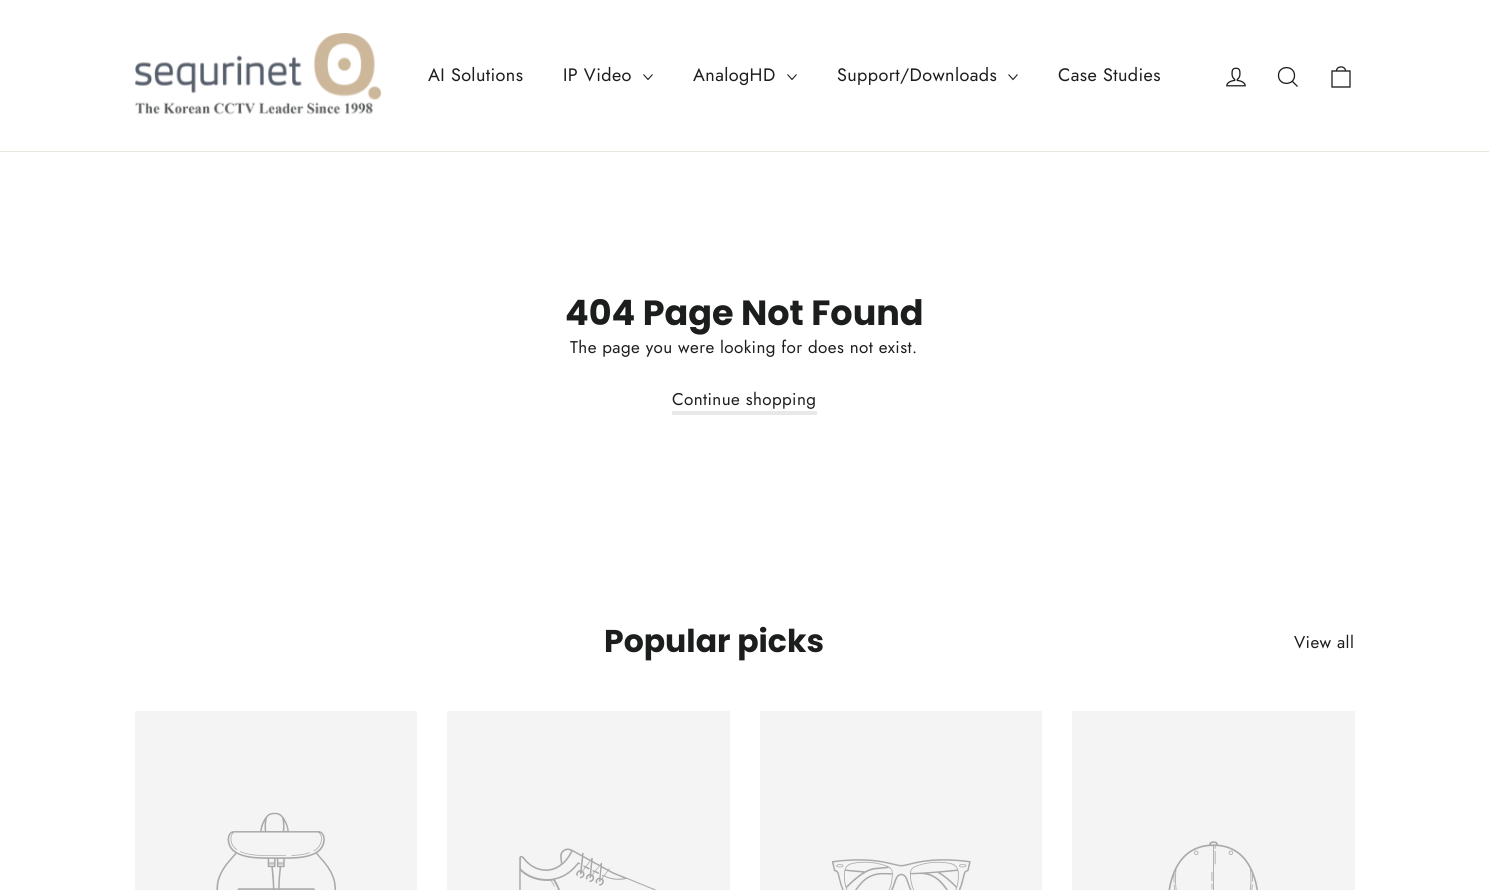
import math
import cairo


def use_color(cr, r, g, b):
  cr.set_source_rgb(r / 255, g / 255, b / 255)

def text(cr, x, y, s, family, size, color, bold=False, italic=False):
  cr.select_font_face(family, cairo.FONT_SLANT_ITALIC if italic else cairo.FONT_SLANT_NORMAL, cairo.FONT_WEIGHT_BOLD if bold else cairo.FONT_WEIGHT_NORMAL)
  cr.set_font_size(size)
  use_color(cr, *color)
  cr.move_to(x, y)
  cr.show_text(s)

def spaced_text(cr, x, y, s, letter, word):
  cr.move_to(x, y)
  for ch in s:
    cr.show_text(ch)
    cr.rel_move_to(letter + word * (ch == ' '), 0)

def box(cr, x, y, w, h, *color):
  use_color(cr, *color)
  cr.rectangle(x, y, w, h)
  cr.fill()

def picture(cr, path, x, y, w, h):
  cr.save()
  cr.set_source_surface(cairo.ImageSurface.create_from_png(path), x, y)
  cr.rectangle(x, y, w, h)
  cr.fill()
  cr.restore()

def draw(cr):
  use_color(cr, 255, 255, 255)
  cr.paint()
  box(cr, 0, 151, 1489, 1, 232, 232, 225)
  picture(cr, "img_01.png", 135, 33, 247, 82)
  cr.new_path()
  cr.move_to(643.5, 74.5)
  cr.line_to(648, 79.5)
  cr.line_to(652.5, 74.5)
  use_color(cr, 28, 29, 29)
  cr.set_line_width(1.1)
  cr.stroke()
  cr.new_path()
  cr.move_to(787.5, 74.5)
  cr.line_to(792, 79.5)
  cr.line_to(796.5, 74.5)
  cr.stroke()
  cr.new_path()
  cr.move_to(1008.5, 74.5)
  cr.line_to(1013, 79.5)
  cr.line_to(1017.5, 74.5)
  cr.stroke()
  picture(cr, "img_02.png", 1226, 67, 20, 20)
  cr.new_path()
  cr.move_to(1294.5, 75.5)
  cr.curve_to(1294.5, 86, 1278.5, 86, 1278.5, 75.5)
  cr.curve_to(1278.5, 65, 1294.5, 65, 1294.5, 75.5)
  cr.close_path()
  cr.move_to(1297.5, 86.5)
  cr.line_to(1292.5, 81.5)
  cr.set_line_width(1.3)
  cr.stroke()
  cr.new_path()
  cr.move_to(1332, 71)
  cr.line_to(1350, 71)
  cr.line_to(1350, 87)
  cr.line_to(1332, 87)
  cr.close_path()
  cr.move_to(1336.5, 71)
  cr.curve_to(1336.5, 65.5, 1345.5, 65.5, 1345.5, 71)
  cr.stroke()
  box(cr, 672, 411, 145, 4, 232, 232, 232)
  box(cr, 135, 711, 282, 179, 244, 244, 244)
  picture(cr, "img_03.png", 216, 812, 121, 78)
  box(cr, 447, 711, 283, 179, 244, 244, 244)
  picture(cr, "img_04.png", 519, 848, 137, 42)
  box(cr, 760, 711, 282, 179, 244, 244, 244)
  picture(cr, "img_05.png", 832, 859, 139, 31)
  box(cr, 1072, 711, 283, 179, 244, 244, 244)
  picture(cr, "img_06.png", 1168, 841, 90, 49)
  cr.select_font_face("Jost")
  cr.set_font_size(18)
  use_color(cr, 28, 29, 29)
  spaced_text(cr, 428, 81, "AI Solutions", 0.4, 0)
  spaced_text(cr, 563, 81, "IP Video", 0.4, 0)
  spaced_text(cr, 693, 81, "AnalogHD", 0.4, 0)
  spaced_text(cr, 837, 81, "Support/Downloads", 0.4, 0)
  spaced_text(cr, 1058, 81, "Case Studies", 0.4, 0)
  text(cr, 565, 325, "404 Page Not Found", "Poppins", 35, (28, 29, 29), bold=True)
  cr.select_font_face("Jost")
  cr.set_font_size(17)
  spaced_text(cr, 570, 353, "The page you were looking for does not exist.", 0.4, 0)
  spaced_text(cr, 672, 405, "Continue shopping", 0.4, 0)
  text(cr, 604, 652, "Popular picks", "Poppins", 31.5, (28, 29, 29), bold=True)
  cr.select_font_face("Jost")
  cr.set_font_size(17)
  spaced_text(cr, 1294, 648, "View all", 0.4, 0)


surface = cairo.ImageSurface(cairo.FORMAT_RGB24, 1489, 890)
cr = cairo.Context(surface)
options = cairo.FontOptions()
options.set_hint_metrics(cairo.HINT_METRICS_OFF)
options.set_hint_style(cairo.HINT_STYLE_NONE)
cr.set_font_options(options)
cr.set_miter_limit(4)
draw(cr)
surface.write_to_png("out.png")
